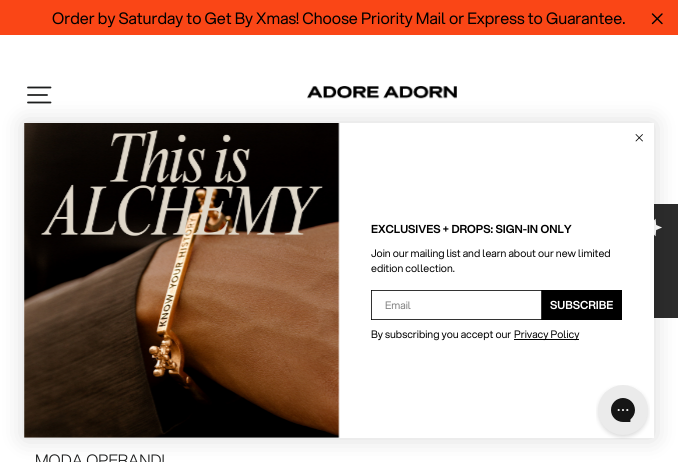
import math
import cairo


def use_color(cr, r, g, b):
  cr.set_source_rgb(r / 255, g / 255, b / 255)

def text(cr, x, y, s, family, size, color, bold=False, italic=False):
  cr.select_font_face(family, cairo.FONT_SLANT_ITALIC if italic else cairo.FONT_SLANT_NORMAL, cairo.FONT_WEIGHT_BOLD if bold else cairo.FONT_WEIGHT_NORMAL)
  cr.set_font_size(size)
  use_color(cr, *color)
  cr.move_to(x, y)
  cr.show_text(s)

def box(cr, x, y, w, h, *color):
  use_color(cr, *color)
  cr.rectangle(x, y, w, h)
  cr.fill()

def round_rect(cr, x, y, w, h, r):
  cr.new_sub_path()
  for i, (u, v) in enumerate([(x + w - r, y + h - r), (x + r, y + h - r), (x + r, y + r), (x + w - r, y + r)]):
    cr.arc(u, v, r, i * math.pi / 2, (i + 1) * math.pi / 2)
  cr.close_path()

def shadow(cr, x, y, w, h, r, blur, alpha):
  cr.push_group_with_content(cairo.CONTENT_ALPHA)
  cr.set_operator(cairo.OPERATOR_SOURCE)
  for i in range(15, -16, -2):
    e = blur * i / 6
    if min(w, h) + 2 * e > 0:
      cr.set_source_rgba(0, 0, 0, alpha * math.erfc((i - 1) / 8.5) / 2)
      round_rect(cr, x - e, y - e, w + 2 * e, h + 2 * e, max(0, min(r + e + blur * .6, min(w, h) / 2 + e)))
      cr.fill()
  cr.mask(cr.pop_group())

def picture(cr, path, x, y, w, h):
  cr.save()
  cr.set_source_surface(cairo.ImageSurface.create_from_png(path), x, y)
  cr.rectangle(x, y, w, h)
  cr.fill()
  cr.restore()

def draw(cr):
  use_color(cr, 255, 255, 255)
  cr.paint()
  box(cr, 0, 0, 678, 35, 250, 70, 22)
  cr.new_path()
  cr.move_to(652.5, 14)
  cr.line_to(662, 23.5)
  cr.move_to(662, 14)
  cr.line_to(652.5, 23.5)
  use_color(cr, 0, 0, 0)
  cr.set_line_width(1.4)
  cr.set_line_cap(cairo.LINE_CAP_ROUND)
  cr.set_line_join(cairo.LINE_JOIN_ROUND)
  cr.stroke()
  cr.new_path()
  cr.move_to(28, 87.5)
  cr.line_to(50.5, 87.5)
  cr.move_to(28, 95)
  cr.line_to(47, 95)
  cr.move_to(28, 102.5)
  cr.line_to(50.5, 102.5)
  use_color(cr, 28, 29, 29)
  cr.set_line_width(1.8)
  cr.stroke()
  picture(cr, "img_01.png", 307, 86, 150, 13)
  use_color(cr, 44, 44, 44)
  cr.new_path()
  cr.move_to(678, 204)
  cr.line_to(678, 318)
  cr.line_to(630, 318)
  cr.curve_to(627, 318, 624, 315, 624, 312)
  cr.line_to(624, 210)
  cr.curve_to(624, 207, 627, 204, 630, 204)
  cr.close_path()
  cr.fill()
  picture(cr, "img_02.png", 654, 218, 8, 19)
  use_color(cr, 0, 0, 0)
  shadow(cr, 24, 123, 630, 315, 0, 12, 0.15)
  box(cr, 24, 123, 630, 315, 255, 255, 255)
  cr.new_path()
  cr.move_to(636, 134.5)
  cr.line_to(642.5, 141)
  cr.move_to(636, 141)
  cr.line_to(642.5, 134.5)
  cr.close_path()
  use_color(cr, 0, 0, 0)
  cr.set_line_width(0.8)
  cr.stroke()
  picture(cr, "img_03.png", 24, 123, 316, 315)
  cr.rectangle(371.4, 290.4, 170.2, 29.2)
  cr.set_line_cap(cairo.LINE_CAP_BUTT)
  cr.set_line_join(cairo.LINE_JOIN_MITER)
  cr.stroke()
  box(cr, 542, 290, 80, 30, 0, 0, 0)
  box(cr, 514, 339, 65, 1, 0, 0, 0)
  picture(cr, "img_04.png", 596, 385, 54, 54)
  text(cr, 52, 24, "Order by Saturday to Get By Xmas! Choose Priority Mail or Express to Guarantee.", "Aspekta", 16, (0, 0, 0))
  text(cr, 35, 466, "MODA OPERANDI", "Aspekta Light", 16, (28, 29, 29))
  text(cr, 371, 233, "EXCLUSIVES + DROPS: SIGN-IN ONLY", "Aspekta SemiBold", 11.25, (0, 0, 0))
  text(cr, 371, 257, "Join our mailing list and learn about our new limited", "Aspekta", 10.5, (0, 0, 0))
  text(cr, 371, 272, "edition collection.", "Aspekta", 10.5, (0, 0, 0))
  text(cr, 385, 309, "Email", "Aspekta", 10.5, (128, 128, 128))
  text(cr, 550, 309, "SUBSCRIBE", "Aspekta SemiBold", 11.25, (255, 255, 255))
  text(cr, 371, 338, "By subscribing you accept our", "Aspekta", 10.5, (0, 0, 0))
  text(cr, 514, 338, "Privacy Policy", "Aspekta", 10.5, (0, 0, 0))


surface = cairo.ImageSurface(cairo.FORMAT_RGB24, 678, 462)
cr = cairo.Context(surface)
options = cairo.FontOptions()
options.set_hint_metrics(cairo.HINT_METRICS_OFF)
options.set_hint_style(cairo.HINT_STYLE_NONE)
cr.set_font_options(options)
cr.set_miter_limit(4)
draw(cr)
surface.write_to_png("out.png")
